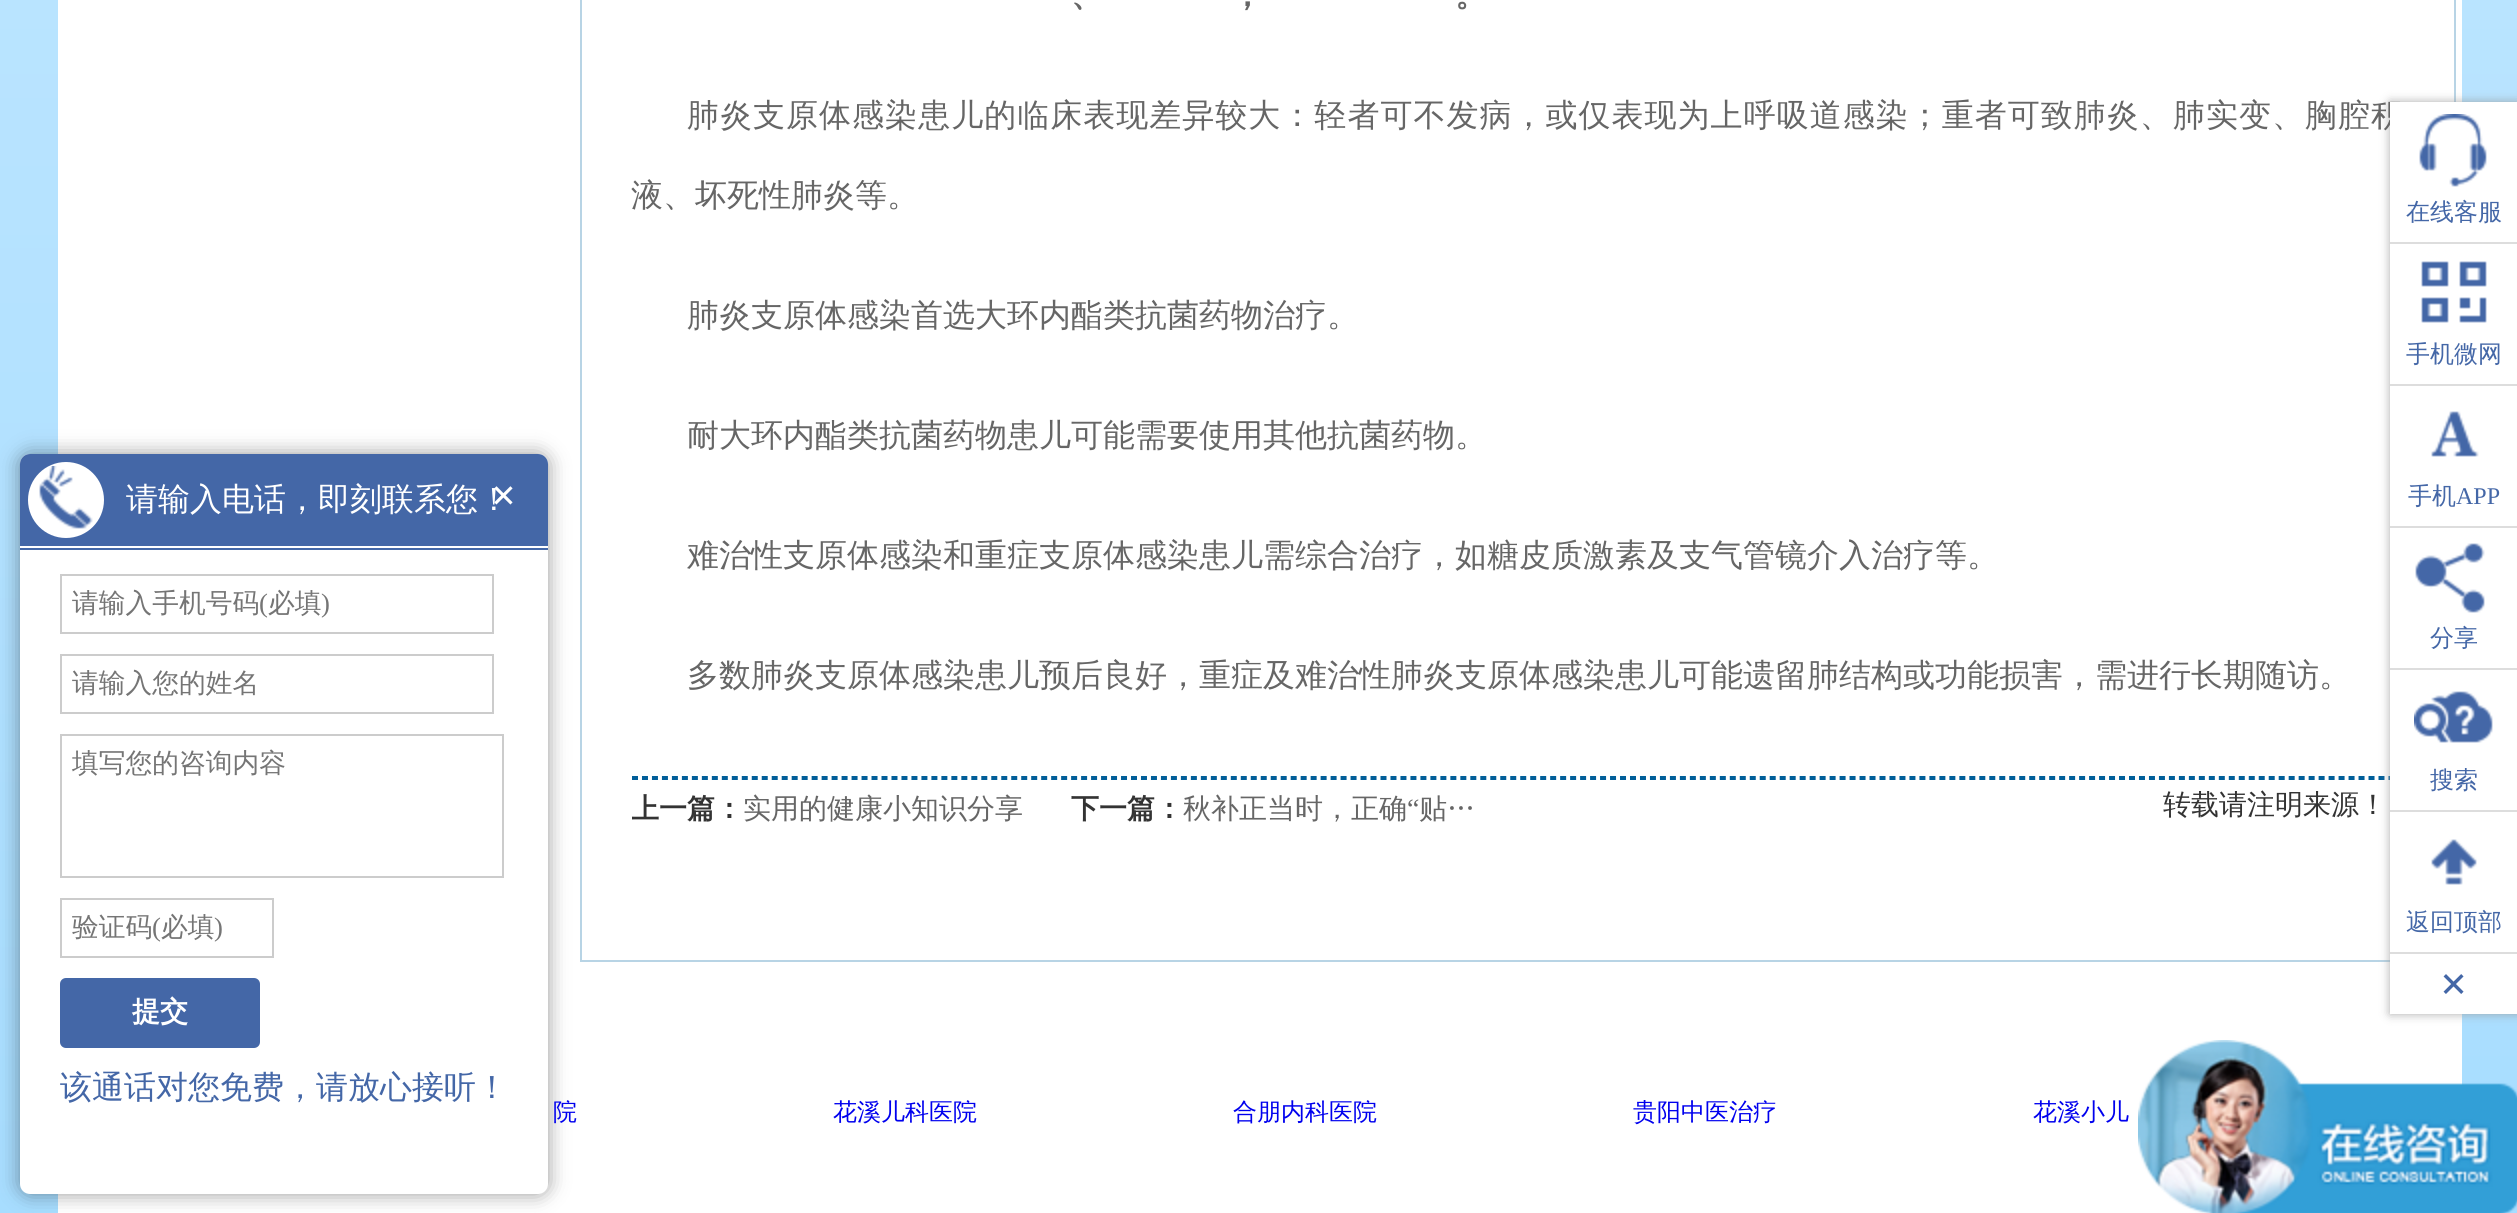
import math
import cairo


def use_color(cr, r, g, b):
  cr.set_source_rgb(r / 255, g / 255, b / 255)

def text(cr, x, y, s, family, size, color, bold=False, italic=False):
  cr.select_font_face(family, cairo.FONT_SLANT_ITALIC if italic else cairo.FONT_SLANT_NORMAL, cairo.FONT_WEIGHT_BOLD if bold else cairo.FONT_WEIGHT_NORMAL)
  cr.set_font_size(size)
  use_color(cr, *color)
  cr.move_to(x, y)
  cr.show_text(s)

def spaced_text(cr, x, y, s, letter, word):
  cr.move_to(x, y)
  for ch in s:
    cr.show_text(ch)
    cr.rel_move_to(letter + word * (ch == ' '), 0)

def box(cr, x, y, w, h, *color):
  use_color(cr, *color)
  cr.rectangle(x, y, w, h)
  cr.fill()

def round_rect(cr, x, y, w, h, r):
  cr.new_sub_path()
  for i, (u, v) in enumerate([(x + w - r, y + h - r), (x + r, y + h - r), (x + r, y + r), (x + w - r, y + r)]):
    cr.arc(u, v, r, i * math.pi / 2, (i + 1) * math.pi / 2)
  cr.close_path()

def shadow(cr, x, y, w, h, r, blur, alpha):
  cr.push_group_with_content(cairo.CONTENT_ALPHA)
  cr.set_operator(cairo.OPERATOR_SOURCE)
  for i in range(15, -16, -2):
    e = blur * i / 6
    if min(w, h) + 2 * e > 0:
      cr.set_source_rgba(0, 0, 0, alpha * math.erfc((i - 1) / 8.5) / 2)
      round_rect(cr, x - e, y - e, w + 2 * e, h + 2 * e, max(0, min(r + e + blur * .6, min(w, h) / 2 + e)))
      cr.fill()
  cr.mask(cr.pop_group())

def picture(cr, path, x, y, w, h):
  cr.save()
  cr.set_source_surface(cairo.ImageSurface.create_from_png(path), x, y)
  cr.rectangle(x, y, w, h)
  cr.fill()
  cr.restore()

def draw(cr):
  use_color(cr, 255, 255, 255)
  cr.paint()
  gradient = cairo.LinearGradient(1259, -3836, 1259, 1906)
  gradient.add_color_stop_rgba(0, 0.945, 0.98, 1, 1)
  gradient.add_color_stop_rgba(1, 0.616, 0.851, 1, 1)
  cr.set_source(gradient)
  cr.rectangle(0, 0, 2517, 1213)
  cr.fill()
  box(cr, 58, 0, 2404, 1213, 255, 255, 255)
  use_color(cr, 0, 0, 0)
  shadow(cr, 20, 454, 528, 740, 10, 10, 0.4)
  use_color(cr, 255, 255, 255)
  round_rect(cr, 20, 454, 528, 740, 10)
  cr.fill()
  use_color(cr, 68, 103, 167)
  cr.new_path()
  cr.move_to(30, 454)
  cr.line_to(538, 454)
  cr.curve_to(543.5, 454, 548, 458.5, 548, 464)
  cr.line_to(548, 550)
  cr.line_to(20, 550)
  cr.line_to(20, 464)
  cr.curve_to(20, 458.5, 24.5, 454, 30, 454)
  cr.close_path()
  cr.fill()
  use_color(cr, 255, 255, 255)
  cr.arc(66, 500, 38, 0, 2 * math.pi)
  cr.fill()
  picture(cr, "img_01.png", 39, 466, 54, 63)
  box(cr, 20, 546, 528, 2, 255, 255, 255)
  cr.rectangle(61, 575, 432, 58)
  use_color(cr, 204, 204, 204)
  cr.stroke()
  cr.rectangle(61, 655, 432, 58)
  cr.stroke()
  cr.rectangle(61, 735, 442, 142)
  cr.stroke()
  cr.rectangle(61, 899, 212, 58)
  cr.stroke()
  use_color(cr, 68, 103, 167)
  round_rect(cr, 60, 978, 200, 70, 6)
  cr.fill()
  box(cr, 2454, 0, 2, 102, 184, 212, 229)
  box(cr, 580, 960, 1810, 2, 184, 212, 229)
  box(cr, 580, 0, 2, 962, 184, 212, 229)
  cr.new_path()
  cr.move_to(632, 777)
  cr.line_to(2404, 777)
  use_color(cr, 0, 94, 153)
  cr.set_dash([6, 3.98])
  cr.stroke()
  cr.new_path()
  cr.move_to(632, 779)
  cr.line_to(2404, 779)
  cr.stroke()
  use_color(cr, 150, 150, 150)
  shadow(cr, 2390, 102, 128, 912, 0, 5, 0.8)
  picture(cr, "img_08.png", 2138, 1040, 379, 173)
  text(cr, 126, 510, "请输入电话，即刻联系您！", "WenQuanYi Zen Hei Medium", 32, (255, 255, 255))
  text(cr, 491, 510, "×", "Liberation Serif", 44, (255, 255, 255), bold=True)
  text(cr, 72, 612, "请输入手机号码", "WenQuanYi Zen Hei Medium", 26.75, (117, 117, 117))
  text(cr, 259, 612, "(", "Liberation Serif", 26.75, (117, 117, 117))
  text(cr, 268, 612, "必填", "WenQuanYi Zen Hei Medium", 26.75, (117, 117, 117))
  text(cr, 321, 612, ")", "Liberation Serif", 26.75, (117, 117, 117))
  text(cr, 72, 692, "请输入您的姓名", "WenQuanYi Zen Hei Medium", 26.75, (117, 117, 117))
  text(cr, 72, 772, "填写您的咨询内容", "WenQuanYi Zen Hei Medium", 26.75, (117, 117, 117))
  text(cr, 72, 936, "验证码", "WenQuanYi Zen Hei Medium", 26.75, (117, 117, 117))
  text(cr, 152, 936, "(", "Liberation Serif", 26.75, (117, 117, 117))
  text(cr, 161, 936, "必填", "WenQuanYi Zen Hei Medium", 26.75, (117, 117, 117))
  text(cr, 214, 936, ")", "Liberation Serif", 26.75, (117, 117, 117))
  text(cr, 132, 1021, "提交", "WenQuanYi Zen Hei", 28, (255, 255, 255), bold=True)
  text(cr, 60, 1098, "该通话对您免费，请放心接听！", "WenQuanYi Zen Hei Medium", 32, (68, 103, 167))
  text(cr, 1071, 6, "、", "WenQuanYi Zen Hei", 32, (102, 102, 102), bold=True)
  text(cr, 1231, 6, "，", "WenQuanYi Zen Hei", 32, (102, 102, 102), bold=True)
  text(cr, 1455, 6, "。", "WenQuanYi Zen Hei", 32, (102, 102, 102), bold=True)
  cr.select_font_face("WenQuanYi Zen Hei Medium")
  spaced_text(cr, 687, 126, "肺炎支原体感染患儿的临床表现差异较大：轻者可不发病，或仅表现为上呼吸道感染；重者可致肺炎、肺实变、胸腔积", 1.02, 0)
  text(cr, 631, 206, "液、坏死性肺炎等。", "WenQuanYi Zen Hei Medium", 32, (102, 102, 102))
  text(cr, 687, 326, "肺炎支原体感染首选大环内酯类抗菌药物治疗。", "WenQuanYi Zen Hei Medium", 32, (102, 102, 102))
  text(cr, 687, 446, "耐大环内酯类抗菌药物患儿可能需要使用其他抗菌药物。", "WenQuanYi Zen Hei Medium", 32, (102, 102, 102))
  text(cr, 687, 566, "难治性支原体感染和重症支原体感染患儿需综合治疗，如糖皮质激素及支气管镜介入治疗等。", "WenQuanYi Zen Hei Medium", 32, (102, 102, 102))
  text(cr, 687, 686, "多数肺炎支原体感染患儿预后良好，重症及难治性肺炎支原体感染患儿可能遗留肺结构或功能损害，需进行长期随访。", "WenQuanYi Zen Hei Medium", 32, (102, 102, 102))
  cr.save()
  cr.rectangle(632, 780, 900, 60)
  cr.clip()
  text(cr, 631, 818, "上一篇：", "WenQuanYi Zen Hei", 28, (51, 51, 51), bold=True)
  cr.restore()
  text(cr, 743, 818, "实用的健康小知识分享", "WenQuanYi Zen Hei Medium", 28, (102, 102, 102))
  text(cr, 1071, 818, "下一篇：", "WenQuanYi Zen Hei", 28, (51, 51, 51), bold=True)
  text(cr, 1183, 818, "秋补正当时，正确", "WenQuanYi Zen Hei Medium", 28, (102, 102, 102))
  text(cr, 1407, 818, "“", "Liberation Serif", 28, (102, 102, 102))
  text(cr, 1419, 818, "贴…", "WenQuanYi Zen Hei Medium", 28, (102, 102, 102))
  text(cr, 2163, 814, "转载请注明来源！", "WenQuanYi Zen Hei Medium", 28, (51, 51, 51))
  box(cr, 2390, 102, 127, 912, 255, 255, 255)
  box(cr, 2390, 242, 127, 2, 221, 221, 221)
  picture(cr, "img_02.png", 2419, 114, 68, 73)
  text(cr, 2406, 220, "在线客服", "WenQuanYi Zen Hei Medium", 24, (68, 103, 167))
  box(cr, 2390, 384, 127, 2, 221, 221, 221)
  picture(cr, "img_03.png", 2421, 261, 66, 62)
  text(cr, 2406, 362, "手机微网", "WenQuanYi Zen Hei Medium", 24, (68, 103, 167))
  box(cr, 2390, 526, 127, 2, 221, 221, 221)
  picture(cr, "img_04.png", 2431, 411, 48, 46)
  text(cr, 2408, 504, "手机", "WenQuanYi Zen Hei Medium", 24, (68, 103, 167))
  text(cr, 2456, 504, "APP", "Liberation Serif", 24, (68, 103, 167))
  box(cr, 2390, 668, 127, 2, 221, 221, 221)
  picture(cr, "img_05.png", 2415, 543, 70, 70)
  text(cr, 2430, 646, "分享", "WenQuanYi Zen Hei Medium", 24, (68, 103, 167))
  box(cr, 2390, 810, 127, 2, 221, 221, 221)
  picture(cr, "img_06.png", 2414, 691, 79, 52)
  text(cr, 2430, 788, "搜索", "WenQuanYi Zen Hei Medium", 24, (68, 103, 167))
  box(cr, 2390, 952, 127, 2, 221, 221, 221)
  picture(cr, "img_07.png", 2431, 839, 46, 46)
  text(cr, 2406, 930, "返回顶部", "WenQuanYi Zen Hei Medium", 24, (68, 103, 167))
  text(cr, 2440, 1000, "×", "Liberation Serif", 48, (68, 103, 167), bold=True)
  text(cr, 553, 1120, "院", "WenQuanYi Zen Hei Medium", 24, (0, 0, 238))
  text(cr, 833, 1120, "花溪儿科医院", "WenQuanYi Zen Hei Medium", 24, (0, 0, 238))
  text(cr, 1233, 1120, "合朋内科医院", "WenQuanYi Zen Hei Medium", 24, (0, 0, 238))
  text(cr, 1633, 1120, "贵阳中医治疗", "WenQuanYi Zen Hei Medium", 24, (0, 0, 238))
  text(cr, 2033, 1120, "花溪小儿", "WenQuanYi Zen Hei Medium", 24, (0, 0, 238))


surface = cairo.ImageSurface(cairo.FORMAT_RGB24, 2517, 1213)
cr = cairo.Context(surface)
options = cairo.FontOptions()
options.set_hint_metrics(cairo.HINT_METRICS_OFF)
options.set_hint_style(cairo.HINT_STYLE_NONE)
cr.set_font_options(options)
cr.set_miter_limit(4)
draw(cr)
surface.write_to_png("out.png")
